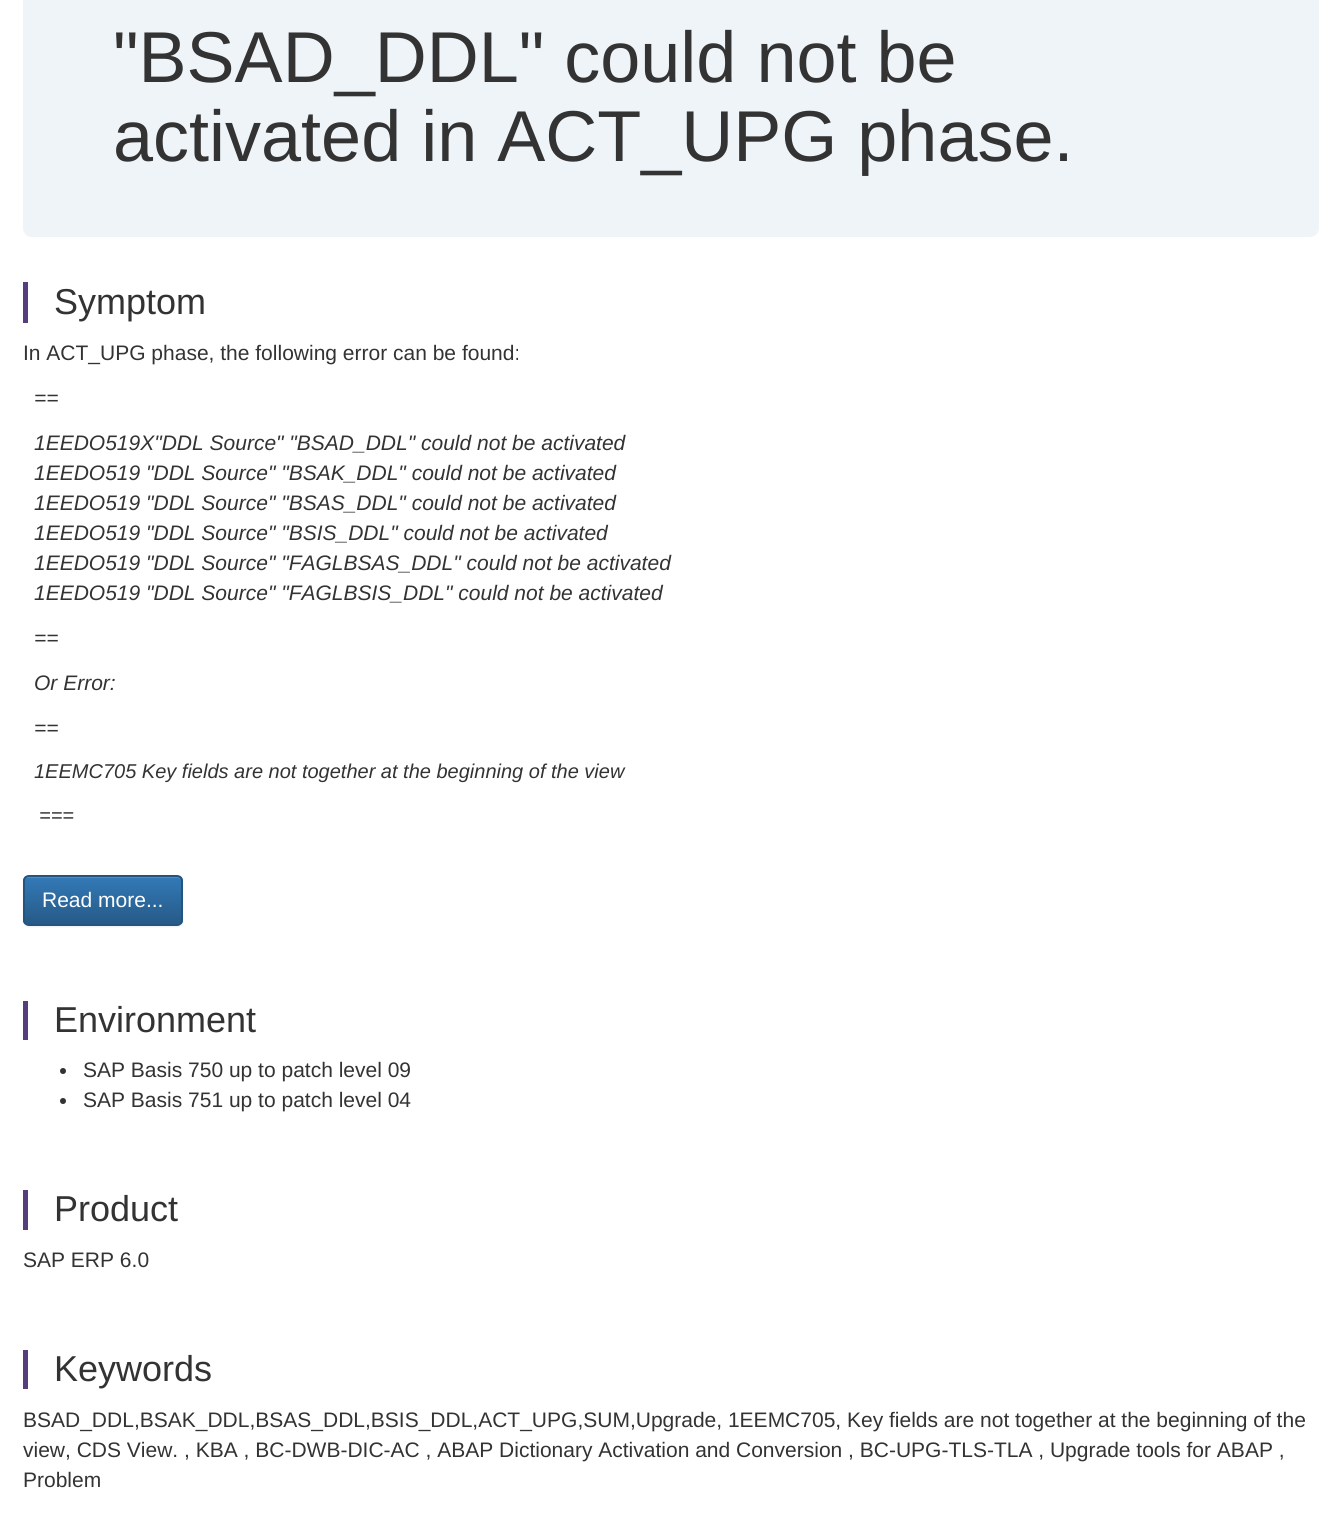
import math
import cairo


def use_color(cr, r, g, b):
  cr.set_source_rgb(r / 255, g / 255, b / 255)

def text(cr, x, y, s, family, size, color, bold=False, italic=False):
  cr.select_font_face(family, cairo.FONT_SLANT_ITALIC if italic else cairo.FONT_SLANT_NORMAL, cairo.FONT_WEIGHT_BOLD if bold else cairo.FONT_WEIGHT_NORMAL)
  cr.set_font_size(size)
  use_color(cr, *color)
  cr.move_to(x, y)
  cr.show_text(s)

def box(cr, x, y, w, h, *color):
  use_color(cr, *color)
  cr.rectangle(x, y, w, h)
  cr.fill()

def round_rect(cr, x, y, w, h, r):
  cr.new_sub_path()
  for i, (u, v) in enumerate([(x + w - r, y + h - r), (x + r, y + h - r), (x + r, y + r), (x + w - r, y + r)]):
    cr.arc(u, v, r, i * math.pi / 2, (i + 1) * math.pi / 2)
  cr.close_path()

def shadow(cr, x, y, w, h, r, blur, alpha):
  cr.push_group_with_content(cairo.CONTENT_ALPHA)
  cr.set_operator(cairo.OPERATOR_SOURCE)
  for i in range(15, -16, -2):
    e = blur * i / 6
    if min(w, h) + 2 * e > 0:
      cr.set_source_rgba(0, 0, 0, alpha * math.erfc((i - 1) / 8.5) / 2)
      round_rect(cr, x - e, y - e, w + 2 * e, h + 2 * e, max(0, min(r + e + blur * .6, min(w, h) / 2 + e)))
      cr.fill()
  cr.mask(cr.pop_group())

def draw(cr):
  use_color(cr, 255, 255, 255)
  cr.paint()
  use_color(cr, 239, 244, 249)
  round_rect(cr, 23, -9, 1296, 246, 9)
  cr.fill()
  box(cr, 23, 282, 5, 41, 86, 61, 124)
  use_color(cr, 0, 0, 0)
  shadow(cr, 23, 876, 160, 51, 6, 1, 0.07)
  cr.save()
  round_rect(cr, 23, 875, 160, 51, 6)
  cr.clip()
  gradient = cairo.LinearGradient(103, 876, 103, 924)
  gradient.add_color_stop_rgba(0, 0.2, 0.478, 0.718, 1)
  gradient.add_color_stop_rgba(1, 0.149, 0.353, 0.533, 1)
  cr.set_source(gradient)
  cr.rectangle(23, 876, 160, 48)
  cr.fill()
  cr.restore()
  cr.set_source_rgba(1, 1, 1, 0.15)
  cr.new_path()
  cr.move_to(28, 878)
  cr.line_to(177, 878)
  cr.curve_to(179, 878, 182, 880, 182, 882)
  cr.line_to(182, 881)
  cr.curve_to(182, 878, 180, 876, 177, 876)
  cr.line_to(29, 876)
  cr.curve_to(26, 876, 24, 878, 24, 881)
  cr.line_to(24, 882)
  cr.curve_to(24, 880, 26, 878, 28, 878)
  cr.close_path()
  cr.fill()
  round_rect(cr, 24, 876, 158, 49, 5)
  use_color(cr, 36, 85, 128)
  cr.stroke()
  box(cr, 23, 1001, 5, 39, 86, 61, 124)
  use_color(cr, 51, 51, 51)
  cr.arc(63, 1071, 3, 0, 2 * math.pi)
  cr.fill()
  cr.arc(63, 1101, 3, 0, 2 * math.pi)
  cr.fill()
  box(cr, 23, 1190, 5, 40, 86, 61, 124)
  box(cr, 23, 1350, 5, 39, 86, 61, 124)
  text(cr, 113, 82, "\"BSAD_DDL\" could not be", "Liberation Sans", 72, (51, 51, 51))
  text(cr, 113, 161, "activated in ACT_UPG phase.", "Liberation Sans", 72, (51, 51, 51))
  text(cr, 54, 314, "Symptom", "Liberation Sans", 36, (51, 51, 51))
  text(cr, 23, 360, "In ACT_UPG phase, the following error can be found:", "Liberation Sans", 21, (51, 51, 51))
  text(cr, 34, 405, "==", "Liberation Sans", 21, (51, 51, 51), italic=True)
  text(cr, 34, 450, "1EEDO519X\"DDL Source\" \"BSAD_DDL\" could not be activated", "Liberation Sans", 21, (51, 51, 51), italic=True)
  text(cr, 34, 480, "1EEDO519 \"DDL Source\" \"BSAK_DDL\" could not be activated", "Liberation Sans", 21, (51, 51, 51), italic=True)
  text(cr, 34, 510, "1EEDO519 \"DDL Source\" \"BSAS_DDL\" could not be activated", "Liberation Sans", 21, (51, 51, 51), italic=True)
  text(cr, 34, 540, "1EEDO519 \"DDL Source\" \"BSIS_DDL\" could not be activated", "Liberation Sans", 21, (51, 51, 51), italic=True)
  text(cr, 34, 570, "1EEDO519 \"DDL Source\" \"FAGLBSAS_DDL\" could not be activated", "Liberation Sans", 21, (51, 51, 51), italic=True)
  text(cr, 34, 600, "1EEDO519 \"DDL Source\" \"FAGLBSIS_DDL\" could not be activated", "Liberation Sans", 21, (51, 51, 51), italic=True)
  text(cr, 34, 645, "==", "Liberation Sans", 21, (51, 51, 51), italic=True)
  text(cr, 34, 690, "Or Error:", "Liberation Sans", 21, (51, 51, 51), italic=True)
  text(cr, 34, 735, "==", "Liberation Sans", 21, (51, 51, 51), italic=True)
  text(cr, 34, 778, "1EEMC705 Key fields are not together at the beginning of the view", "Liberation Sans", 20, (51, 51, 51), italic=True)
  text(cr, 39, 822, "===", "Liberation Sans", 20, (51, 51, 51), italic=True)
  text(cr, 42, 907, "Read more...", "Liberation Sans", 21, (255, 255, 255))
  text(cr, 54, 1032, "Environment", "Liberation Sans", 36, (51, 51, 51))
  text(cr, 83, 1077, "SAP Basis 750 up to patch level 09", "Liberation Sans", 21, (51, 51, 51))
  text(cr, 83, 1107, "SAP Basis 751 up to patch level 04", "Liberation Sans", 21, (51, 51, 51))
  text(cr, 54, 1221, "Product", "Liberation Sans", 36, (51, 51, 51))
  text(cr, 23, 1267, "SAP ERP 6.0", "Liberation Sans", 21, (51, 51, 51))
  text(cr, 54, 1381, "Keywords", "Liberation Sans", 36, (51, 51, 51))
  text(cr, 23, 1427, "BSAD_DDL,BSAK_DDL,BSAS_DDL,BSIS_DDL,ACT_UPG,SUM,Upgrade, 1EEMC705, Key fields are not together at the beginning of the", "Liberation Sans", 21, (51, 51, 51))
  text(cr, 23, 1457, "view, CDS View. , KBA , BC-DWB-DIC-AC , ABAP Dictionary Activation and Conversion , BC-UPG-TLS-TLA , Upgrade tools for ABAP ,", "Liberation Sans", 21, (51, 51, 51))
  text(cr, 23, 1487, "Problem", "Liberation Sans", 21, (51, 51, 51))


surface = cairo.ImageSurface(cairo.FORMAT_RGB24, 1341, 1526)
cr = cairo.Context(surface)
options = cairo.FontOptions()
options.set_hint_metrics(cairo.HINT_METRICS_OFF)
options.set_hint_style(cairo.HINT_STYLE_NONE)
cr.set_font_options(options)
cr.set_miter_limit(4)
draw(cr)
surface.write_to_png("out.png")
